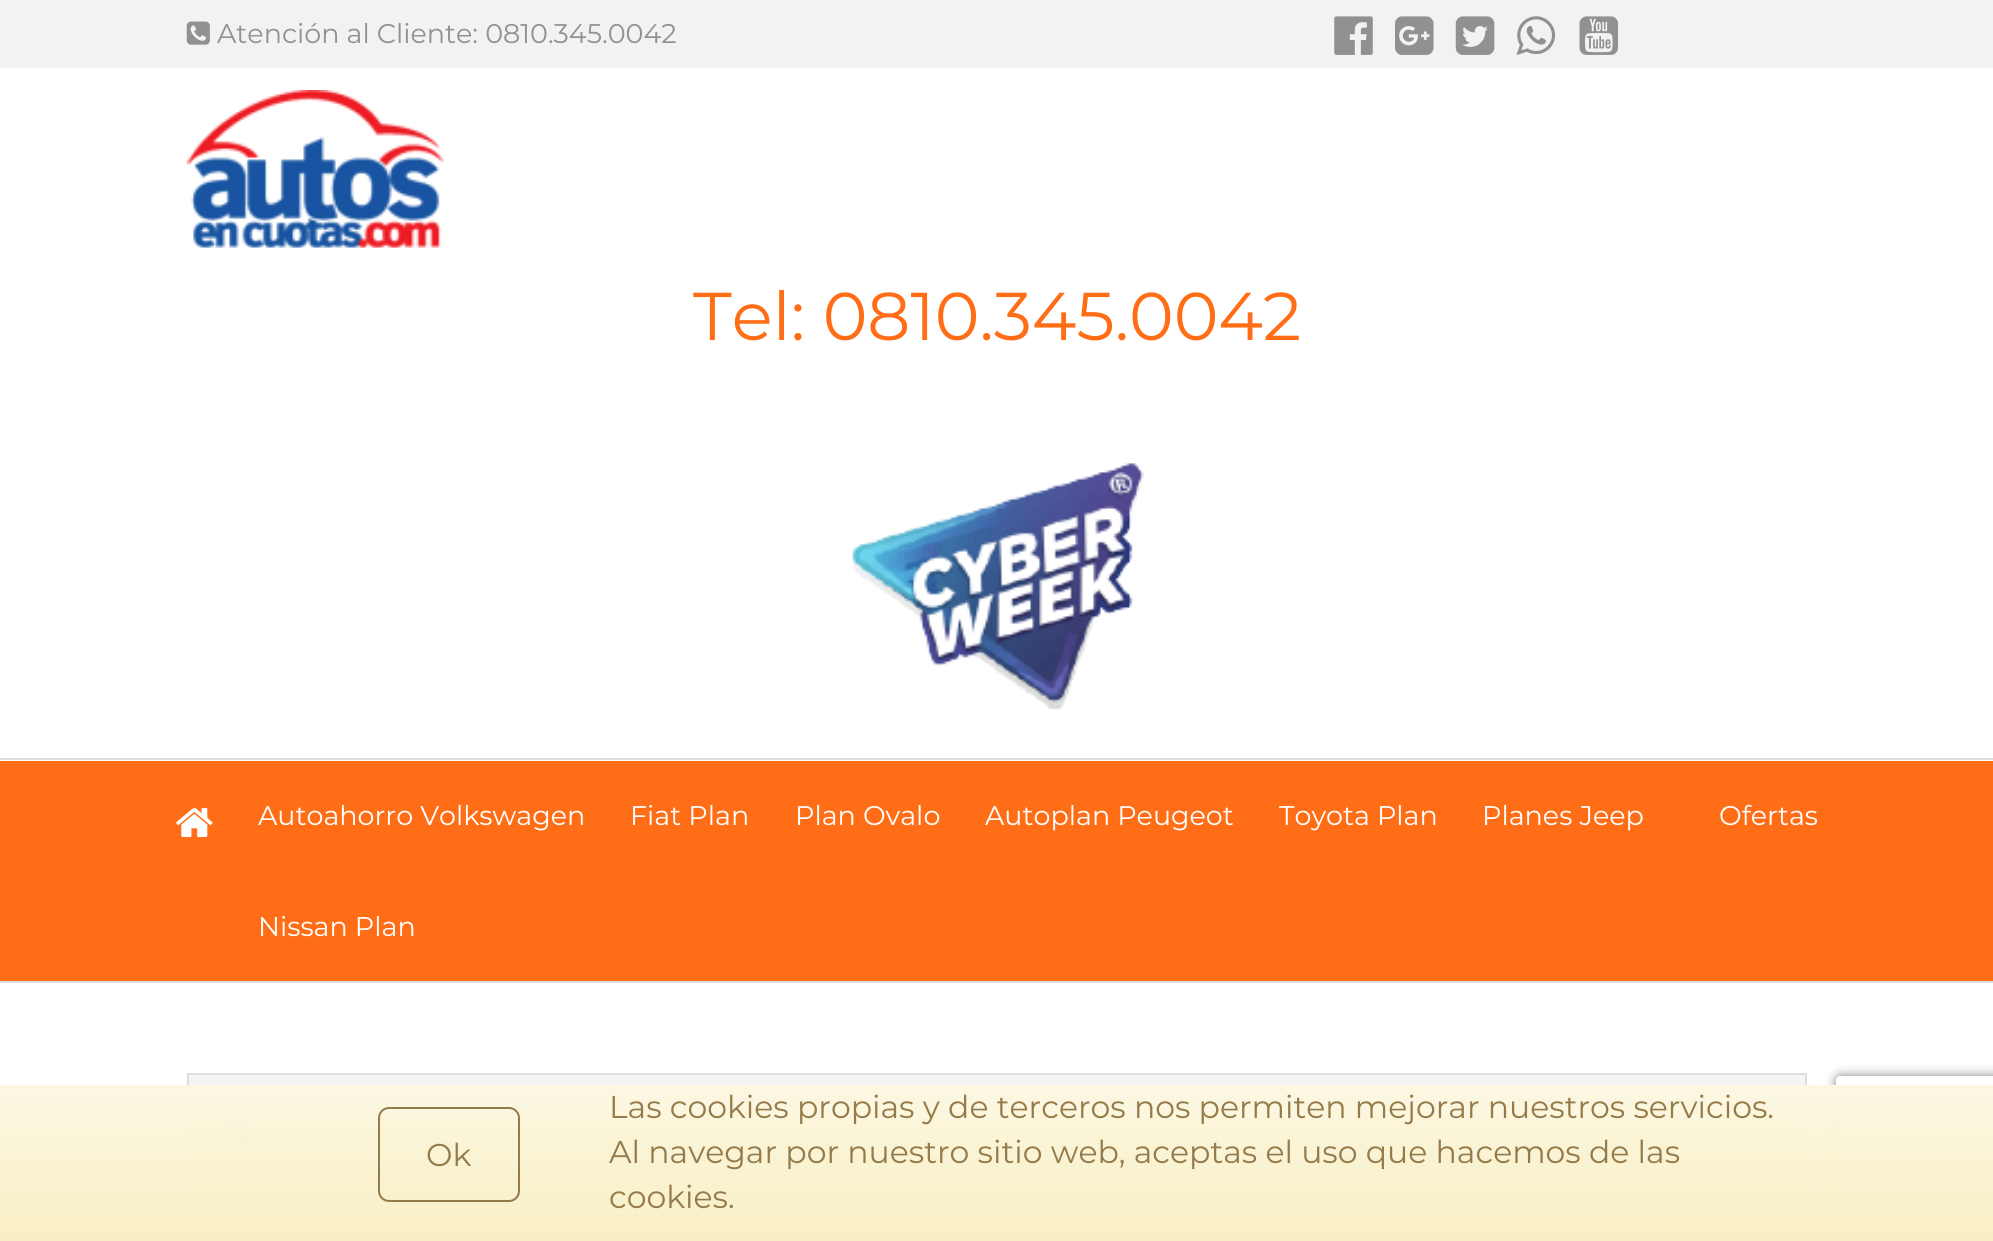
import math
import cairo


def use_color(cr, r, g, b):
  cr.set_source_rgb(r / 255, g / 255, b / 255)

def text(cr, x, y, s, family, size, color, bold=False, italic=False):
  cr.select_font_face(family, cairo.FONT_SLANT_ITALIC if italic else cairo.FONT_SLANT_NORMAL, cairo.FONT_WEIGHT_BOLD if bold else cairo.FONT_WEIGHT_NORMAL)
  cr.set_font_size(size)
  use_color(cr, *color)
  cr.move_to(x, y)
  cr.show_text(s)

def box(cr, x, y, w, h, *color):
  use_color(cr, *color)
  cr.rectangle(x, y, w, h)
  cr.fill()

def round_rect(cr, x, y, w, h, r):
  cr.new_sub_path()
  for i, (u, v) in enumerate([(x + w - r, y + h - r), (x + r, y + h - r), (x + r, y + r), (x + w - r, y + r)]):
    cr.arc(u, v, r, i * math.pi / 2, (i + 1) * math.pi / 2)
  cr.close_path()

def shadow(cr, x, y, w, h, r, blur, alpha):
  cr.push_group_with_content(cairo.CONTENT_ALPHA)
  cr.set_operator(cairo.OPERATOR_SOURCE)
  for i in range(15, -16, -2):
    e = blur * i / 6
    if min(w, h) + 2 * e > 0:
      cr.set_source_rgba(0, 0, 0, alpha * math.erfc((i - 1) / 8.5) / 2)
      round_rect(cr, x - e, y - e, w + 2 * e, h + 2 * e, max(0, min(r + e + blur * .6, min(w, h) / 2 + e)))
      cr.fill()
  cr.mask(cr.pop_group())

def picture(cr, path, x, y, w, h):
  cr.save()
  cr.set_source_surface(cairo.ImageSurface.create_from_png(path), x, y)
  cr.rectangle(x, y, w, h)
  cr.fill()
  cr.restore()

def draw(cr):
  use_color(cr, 255, 255, 255)
  cr.paint()
  box(cr, 0, 0, 1993, 68, 242, 242, 242)
  picture(cr, "img_01.png", 186, 21, 24, 24)
  picture(cr, "img_02.png", 1334, 16, 39, 39)
  picture(cr, "img_03.png", 1395, 16, 39, 39)
  picture(cr, "img_04.png", 1455, 16, 40, 39)
  picture(cr, "img_05.png", 1516, 16, 40, 39)
  picture(cr, "img_06.png", 1579, 16, 40, 39)
  picture(cr, "img_07.png", 186, 90, 258, 158)
  picture(cr, "img_08.png", 852, 463, 292, 247)
  box(cr, 0, 758, 1993, 2, 221, 221, 221)
  box(cr, 0, 981, 1993, 2, 221, 221, 221)
  box(cr, 0, 761, 1993, 220, 255, 110, 22)
  picture(cr, "img_09.png", 176, 808, 37, 29)
  use_color(cr, 244, 244, 244)
  cr.rectangle(188, 1074, 1618, 115)
  cr.fill_preserve()
  use_color(cr, 221, 221, 221)
  cr.stroke()
  picture(cr, "img_10.png", 223, 1120, 29, 23)
  cr.save()
  cr.set_fill_rule(cairo.FILL_RULE_EVEN_ODD)
  cr.new_path()
  cr.move_to(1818, 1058)
  cr.line_to(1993, 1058)
  cr.line_to(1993, 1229)
  cr.line_to(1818, 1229)
  cr.close_path()
  cr.move_to(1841, 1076)
  cr.line_to(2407, 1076)
  cr.curve_to(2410, 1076, 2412, 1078, 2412, 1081)
  cr.line_to(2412, 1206)
  cr.curve_to(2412, 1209, 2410, 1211, 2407, 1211)
  cr.line_to(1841, 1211)
  cr.curve_to(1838, 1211, 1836, 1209, 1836, 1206)
  cr.line_to(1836, 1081)
  cr.curve_to(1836, 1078, 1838, 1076, 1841, 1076)
  cr.close_path()
  cr.clip()
  use_color(cr, 128, 128, 128)
  shadow(cr, 1836, 1076, 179, 135, 5, 5.5, 1)
  cr.restore()
  cr.set_source_rgba(0.988, 0.973, 0.89, 0.9)
  cr.rectangle(0, 1085, 1993, 156)
  cr.fill()
  gradient = cairo.LinearGradient(997, 1084, 997, 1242)
  gradient.add_color_stop_rgba(0, 0.988, 0.973, 0.89, 0.9)
  gradient.add_color_stop_rgba(1, 0.973, 0.937, 0.753, 0.9)
  cr.set_source(gradient)
  cr.rectangle(0, 1085, 1993, 156)
  cr.fill()
  round_rect(cr, 379, 1108, 140, 93, 10)
  cr.set_source_rgba(0.541, 0.427, 0.231, 0.9)
  cr.stroke()
  text(cr, 217, 43, "Atención al Cliente: 0810.345.0042", "Montserrat", 27, (145, 145, 145))
  text(cr, 693, 340, "Tel: 0810.345.0042", "Montserrat", 67.5, (255, 110, 22))
  text(cr, 258, 825, "Autoahorro Volkswagen", "Montserrat", 27, (255, 255, 255))
  text(cr, 630, 825, "Fiat Plan", "Montserrat", 27, (255, 255, 255))
  text(cr, 795, 825, "Plan Ovalo", "Montserrat", 27, (255, 255, 255))
  text(cr, 985, 825, "Autoplan Peugeot", "Montserrat", 27, (255, 255, 255))
  text(cr, 1279, 825, "Toyota Plan", "Montserrat", 27, (255, 255, 255))
  text(cr, 1482, 825, "Planes Jeep", "Montserrat", 27, (255, 255, 255))
  text(cr, 1719, 825, "Ofertas", "Montserrat", 27, (255, 255, 255))
  text(cr, 258, 936, "Nissan Plan", "Montserrat", 27, (255, 255, 255))
  text(cr, 426, 1166, "Ok", "Montserrat", 31.5, (149, 122, 74))
  text(cr, 609, 1118, "Las cookies propias y de terceros nos permiten mejorar nuestros servicios.", "Montserrat", 31.5, (149, 122, 74))
  text(cr, 609, 1163, "Al navegar por nuestro sitio web, aceptas el uso que hacemos de las", "Montserrat", 31.5, (149, 122, 74))
  text(cr, 609, 1208, "cookies.", "Montserrat", 31.5, (149, 122, 74))


surface = cairo.ImageSurface(cairo.FORMAT_RGB24, 1993, 1241)
cr = cairo.Context(surface)
options = cairo.FontOptions()
options.set_hint_metrics(cairo.HINT_METRICS_OFF)
options.set_hint_style(cairo.HINT_STYLE_NONE)
cr.set_font_options(options)
cr.set_miter_limit(4)
draw(cr)
surface.write_to_png("out.png")
